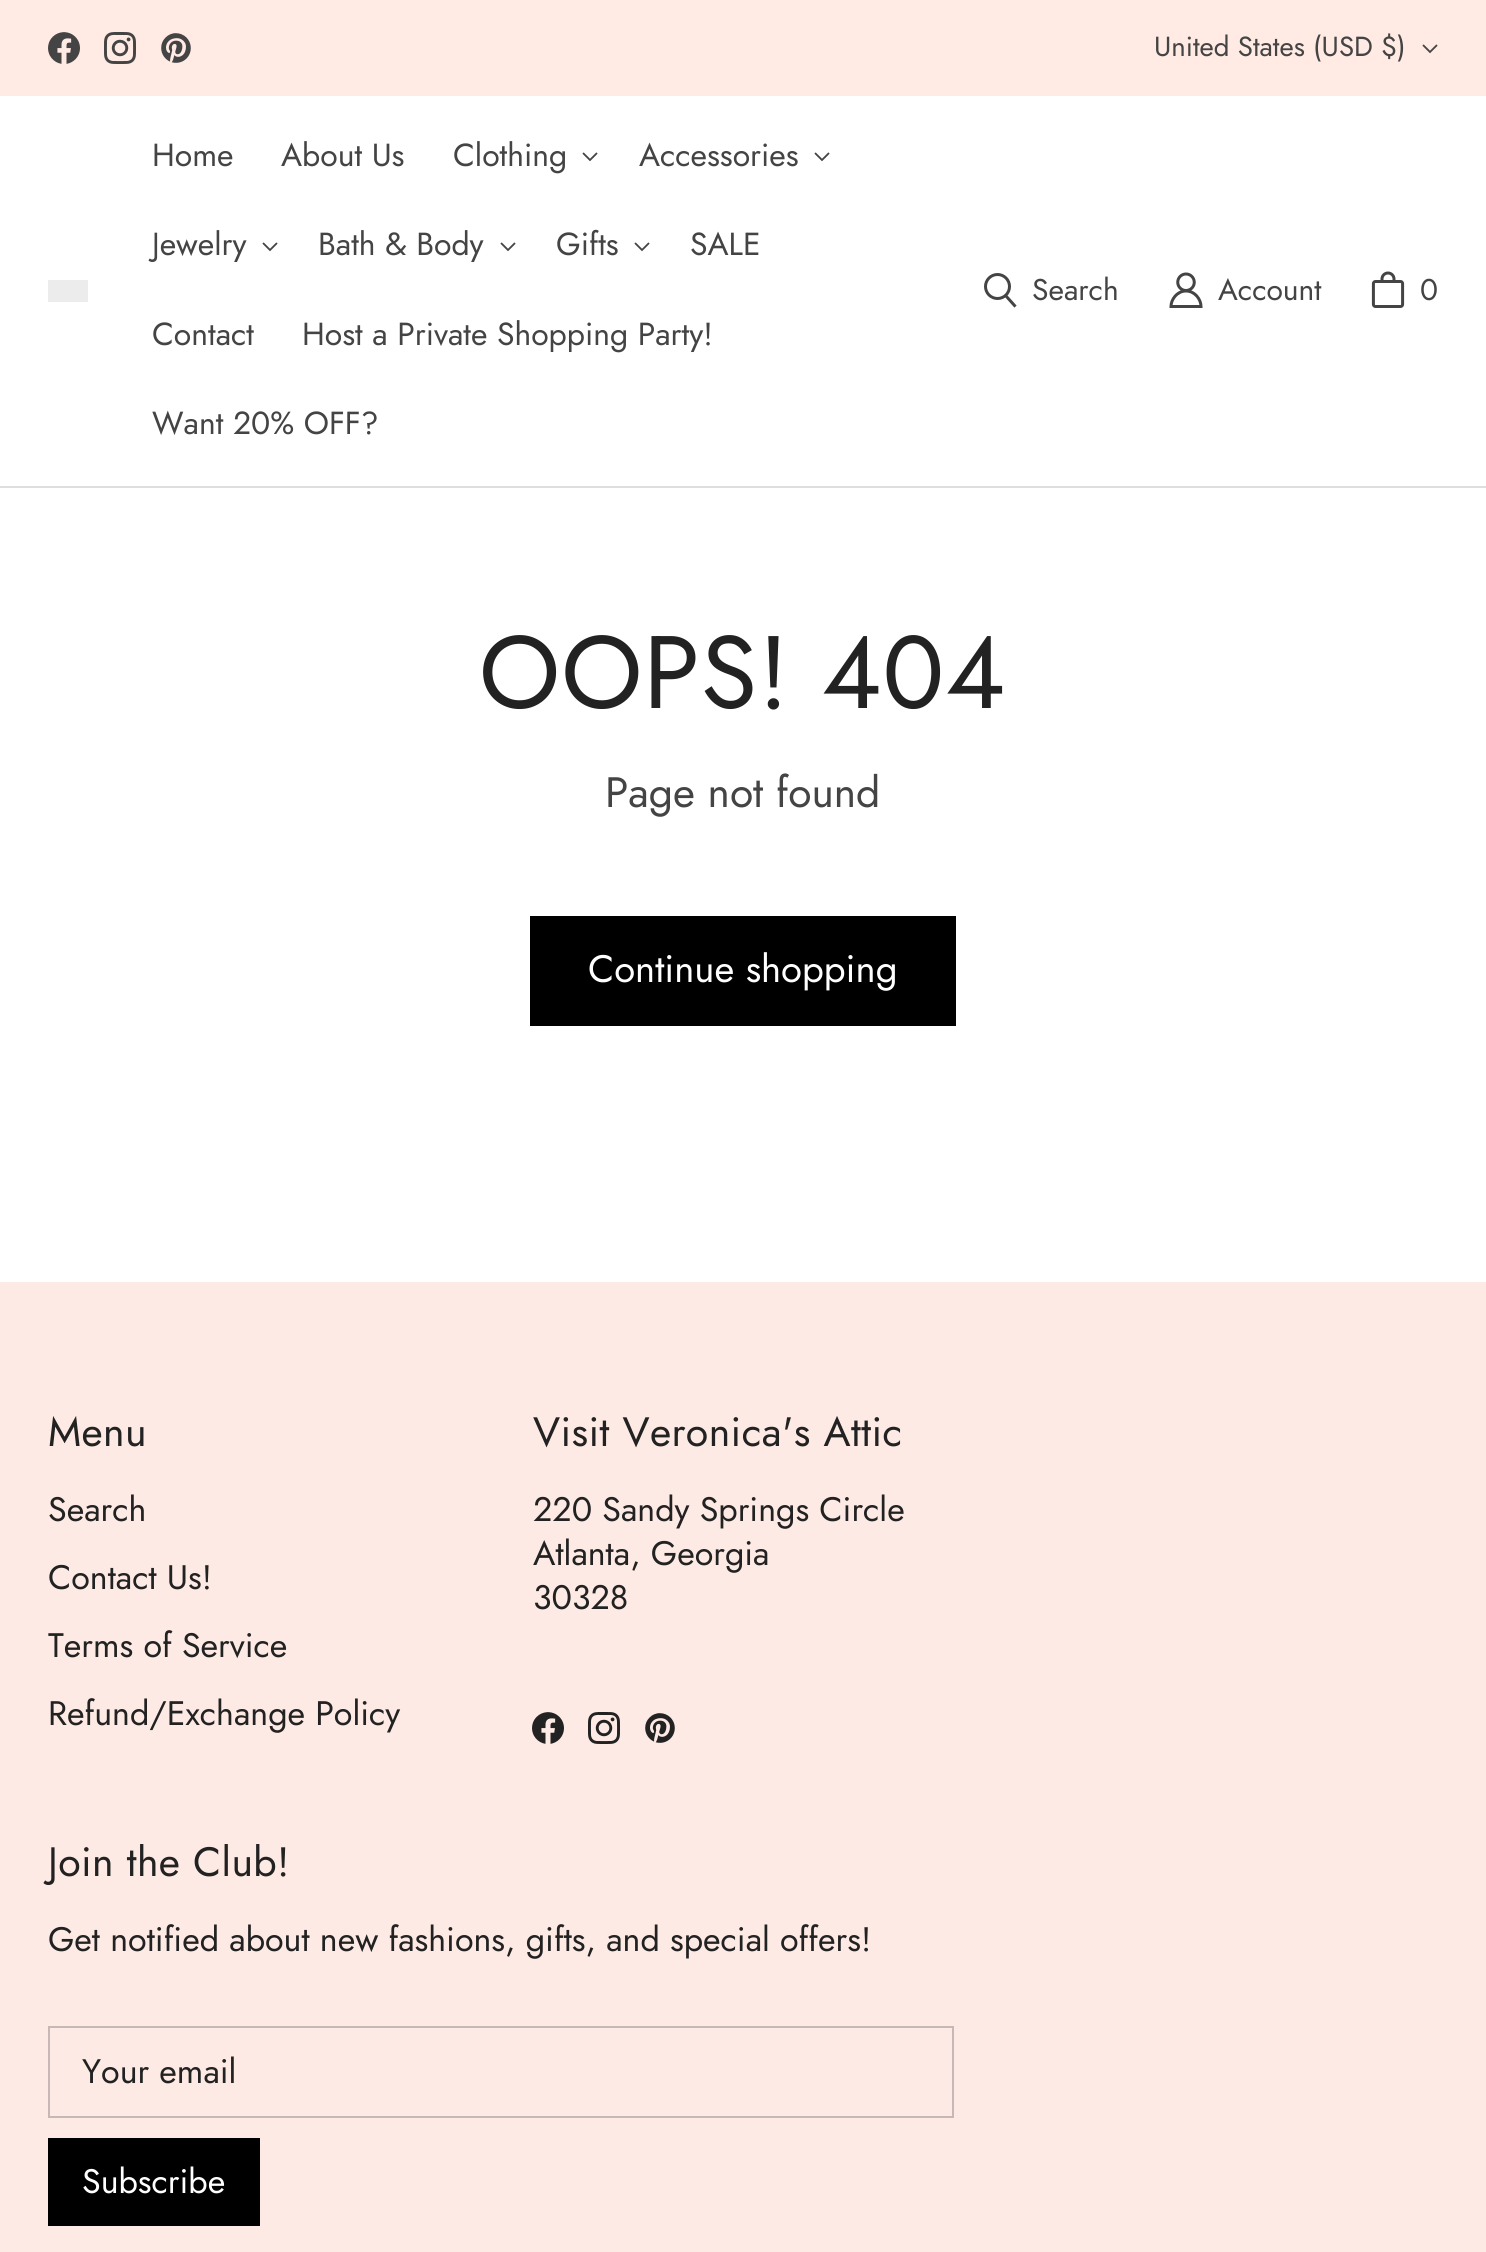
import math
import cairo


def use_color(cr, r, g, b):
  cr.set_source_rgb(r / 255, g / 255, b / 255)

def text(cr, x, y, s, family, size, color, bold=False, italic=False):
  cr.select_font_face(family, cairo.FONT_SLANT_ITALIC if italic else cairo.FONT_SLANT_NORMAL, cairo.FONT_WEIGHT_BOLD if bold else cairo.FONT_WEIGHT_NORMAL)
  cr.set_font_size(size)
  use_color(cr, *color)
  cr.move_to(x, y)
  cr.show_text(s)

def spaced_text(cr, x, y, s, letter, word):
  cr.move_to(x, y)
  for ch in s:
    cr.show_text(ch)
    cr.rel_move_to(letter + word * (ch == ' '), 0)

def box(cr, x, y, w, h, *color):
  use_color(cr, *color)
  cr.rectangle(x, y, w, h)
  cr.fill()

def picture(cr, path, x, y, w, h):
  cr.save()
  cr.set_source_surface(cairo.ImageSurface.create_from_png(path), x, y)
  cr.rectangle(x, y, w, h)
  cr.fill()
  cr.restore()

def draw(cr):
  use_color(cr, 255, 255, 255)
  cr.paint()
  box(cr, 0, 0, 1486, 96, 255, 234, 228)
  picture(cr, "img_01.png", 48, 32, 32, 32)
  picture(cr, "img_02.png", 104, 32, 32, 32)
  picture(cr, "img_03.png", 161, 33, 30, 30)
  cr.new_path()
  cr.move_to(1423, 45)
  cr.line_to(1430, 52)
  cr.line_to(1437, 45)
  use_color(cr, 68, 68, 68)
  cr.set_line_width(1.8)
  cr.stroke()
  box(cr, 0, 486, 1486, 2, 222, 222, 222)
  box(cr, 48, 280, 40, 22, 236, 236, 236)
  cr.new_path()
  cr.move_to(583, 153)
  cr.line_to(590, 160)
  cr.line_to(597, 153)
  use_color(cr, 68, 68, 68)
  cr.stroke()
  cr.new_path()
  cr.move_to(815, 153)
  cr.line_to(822, 160)
  cr.line_to(829, 153)
  cr.stroke()
  cr.new_path()
  cr.move_to(263, 243)
  cr.line_to(270, 250)
  cr.line_to(277, 243)
  cr.stroke()
  cr.new_path()
  cr.move_to(501, 243)
  cr.line_to(508, 250)
  cr.line_to(515, 243)
  cr.stroke()
  cr.new_path()
  cr.move_to(635, 243)
  cr.line_to(642, 250)
  cr.line_to(649, 243)
  cr.stroke()
  picture(cr, "img_04.png", 984, 273, 33, 35)
  picture(cr, "img_05.png", 1169, 272, 34, 36)
  picture(cr, "img_06.png", 1371, 271, 34, 37)
  box(cr, 530, 916, 426, 110, 0, 0, 0)
  box(cr, 0, 1282, 1486, 970, 254, 234, 228)
  picture(cr, "img_07.png", 532, 1712, 32, 32)
  picture(cr, "img_08.png", 588, 1712, 32, 32)
  picture(cr, "img_09.png", 645, 1713, 30, 30)
  cr.rectangle(49, 2027, 904, 90)
  use_color(cr, 198, 184, 180)
  cr.set_line_width(2)
  cr.stroke()
  box(cr, 48, 2138, 212, 88, 0, 0, 0)
  text(cr, 1154, 56, "United States (USD $)", "Jost", 27.6, (68, 68, 68))
  text(cr, 152, 166, "Home", "Jost", 31.9, (68, 68, 68))
  text(cr, 281, 166, "About Us", "Jost", 31.9, (68, 68, 68))
  text(cr, 453, 166, "Clothing", "Jost", 31.9, (68, 68, 68))
  text(cr, 639, 166, "Accessories", "Jost", 31.9, (68, 68, 68))
  text(cr, 152, 255, "Jewelry", "Jost", 31.9, (68, 68, 68))
  text(cr, 318, 255, "Bath & Body", "Jost", 31.9, (68, 68, 68))
  text(cr, 556, 255, "Gifts", "Jost", 31.9, (68, 68, 68))
  text(cr, 690, 255, "SALE", "Jost", 31.9, (68, 68, 68))
  text(cr, 152, 345, "Contact", "Jost", 31.9, (68, 68, 68))
  text(cr, 302, 345, "Host a Private Shopping Party!", "Jost", 31.9, (68, 68, 68))
  text(cr, 152, 434, "Want 20% OFF?", "Jost", 31.9, (68, 68, 68))
  text(cr, 1032, 300, "Search", "Jost", 30, (68, 68, 68))
  text(cr, 1218, 300, "Account", "Jost", 30, (68, 68, 68))
  text(cr, 1420, 300, "0", "Jost", 30, (68, 68, 68))
  cr.set_font_size(102.75)
  use_color(cr, 34, 34, 34)
  spaced_text(cr, 479, 708, "OOPS! 404", 1, 0)
  text(cr, 605, 807, "Page not found", "Jost", 42.5, (68, 68, 68))
  text(cr, 588, 982, "Continue shopping", "Jost", 38.25, (255, 255, 255))
  cr.set_font_size(41)
  use_color(cr, 34, 34, 34)
  spaced_text(cr, 48, 1446, "Menu", 0.4, 0)
  text(cr, 48, 1521, "Search", "Jost", 34, (34, 34, 34))
  text(cr, 48, 1589, "Contact Us!", "Jost", 34, (34, 34, 34))
  text(cr, 48, 1657, "Terms of Service", "Jost", 34, (34, 34, 34))
  text(cr, 48, 1725, "Refund/Exchange Policy", "Jost", 34, (34, 34, 34))
  cr.set_font_size(41)
  spaced_text(cr, 533, 1446, "Visit Veronica's Attic", 0.4, 0)
  text(cr, 533, 1521, "220 Sandy Springs Circle", "Jost", 34, (34, 34, 34))
  text(cr, 533, 1565, "Atlanta, Georgia", "Jost", 34, (34, 34, 34))
  text(cr, 533, 1609, "30328", "Jost", 34, (34, 34, 34))
  cr.set_font_size(41)
  spaced_text(cr, 48, 1876, "Join the Club!", 0.4, 0)
  text(cr, 48, 1951, "Get notified about new fashions, gifts, and special offers!", "Jost", 34, (34, 34, 34))
  text(cr, 82, 2083, "Your email", "Jost", 34, (34, 34, 34))
  text(cr, 82, 2193, "Subscribe", "Jost", 34, (255, 255, 255))


surface = cairo.ImageSurface(cairo.FORMAT_RGB24, 1486, 2252)
cr = cairo.Context(surface)
options = cairo.FontOptions()
options.set_hint_metrics(cairo.HINT_METRICS_OFF)
options.set_hint_style(cairo.HINT_STYLE_NONE)
cr.set_font_options(options)
cr.set_miter_limit(4)
draw(cr)
surface.write_to_png("out.png")
